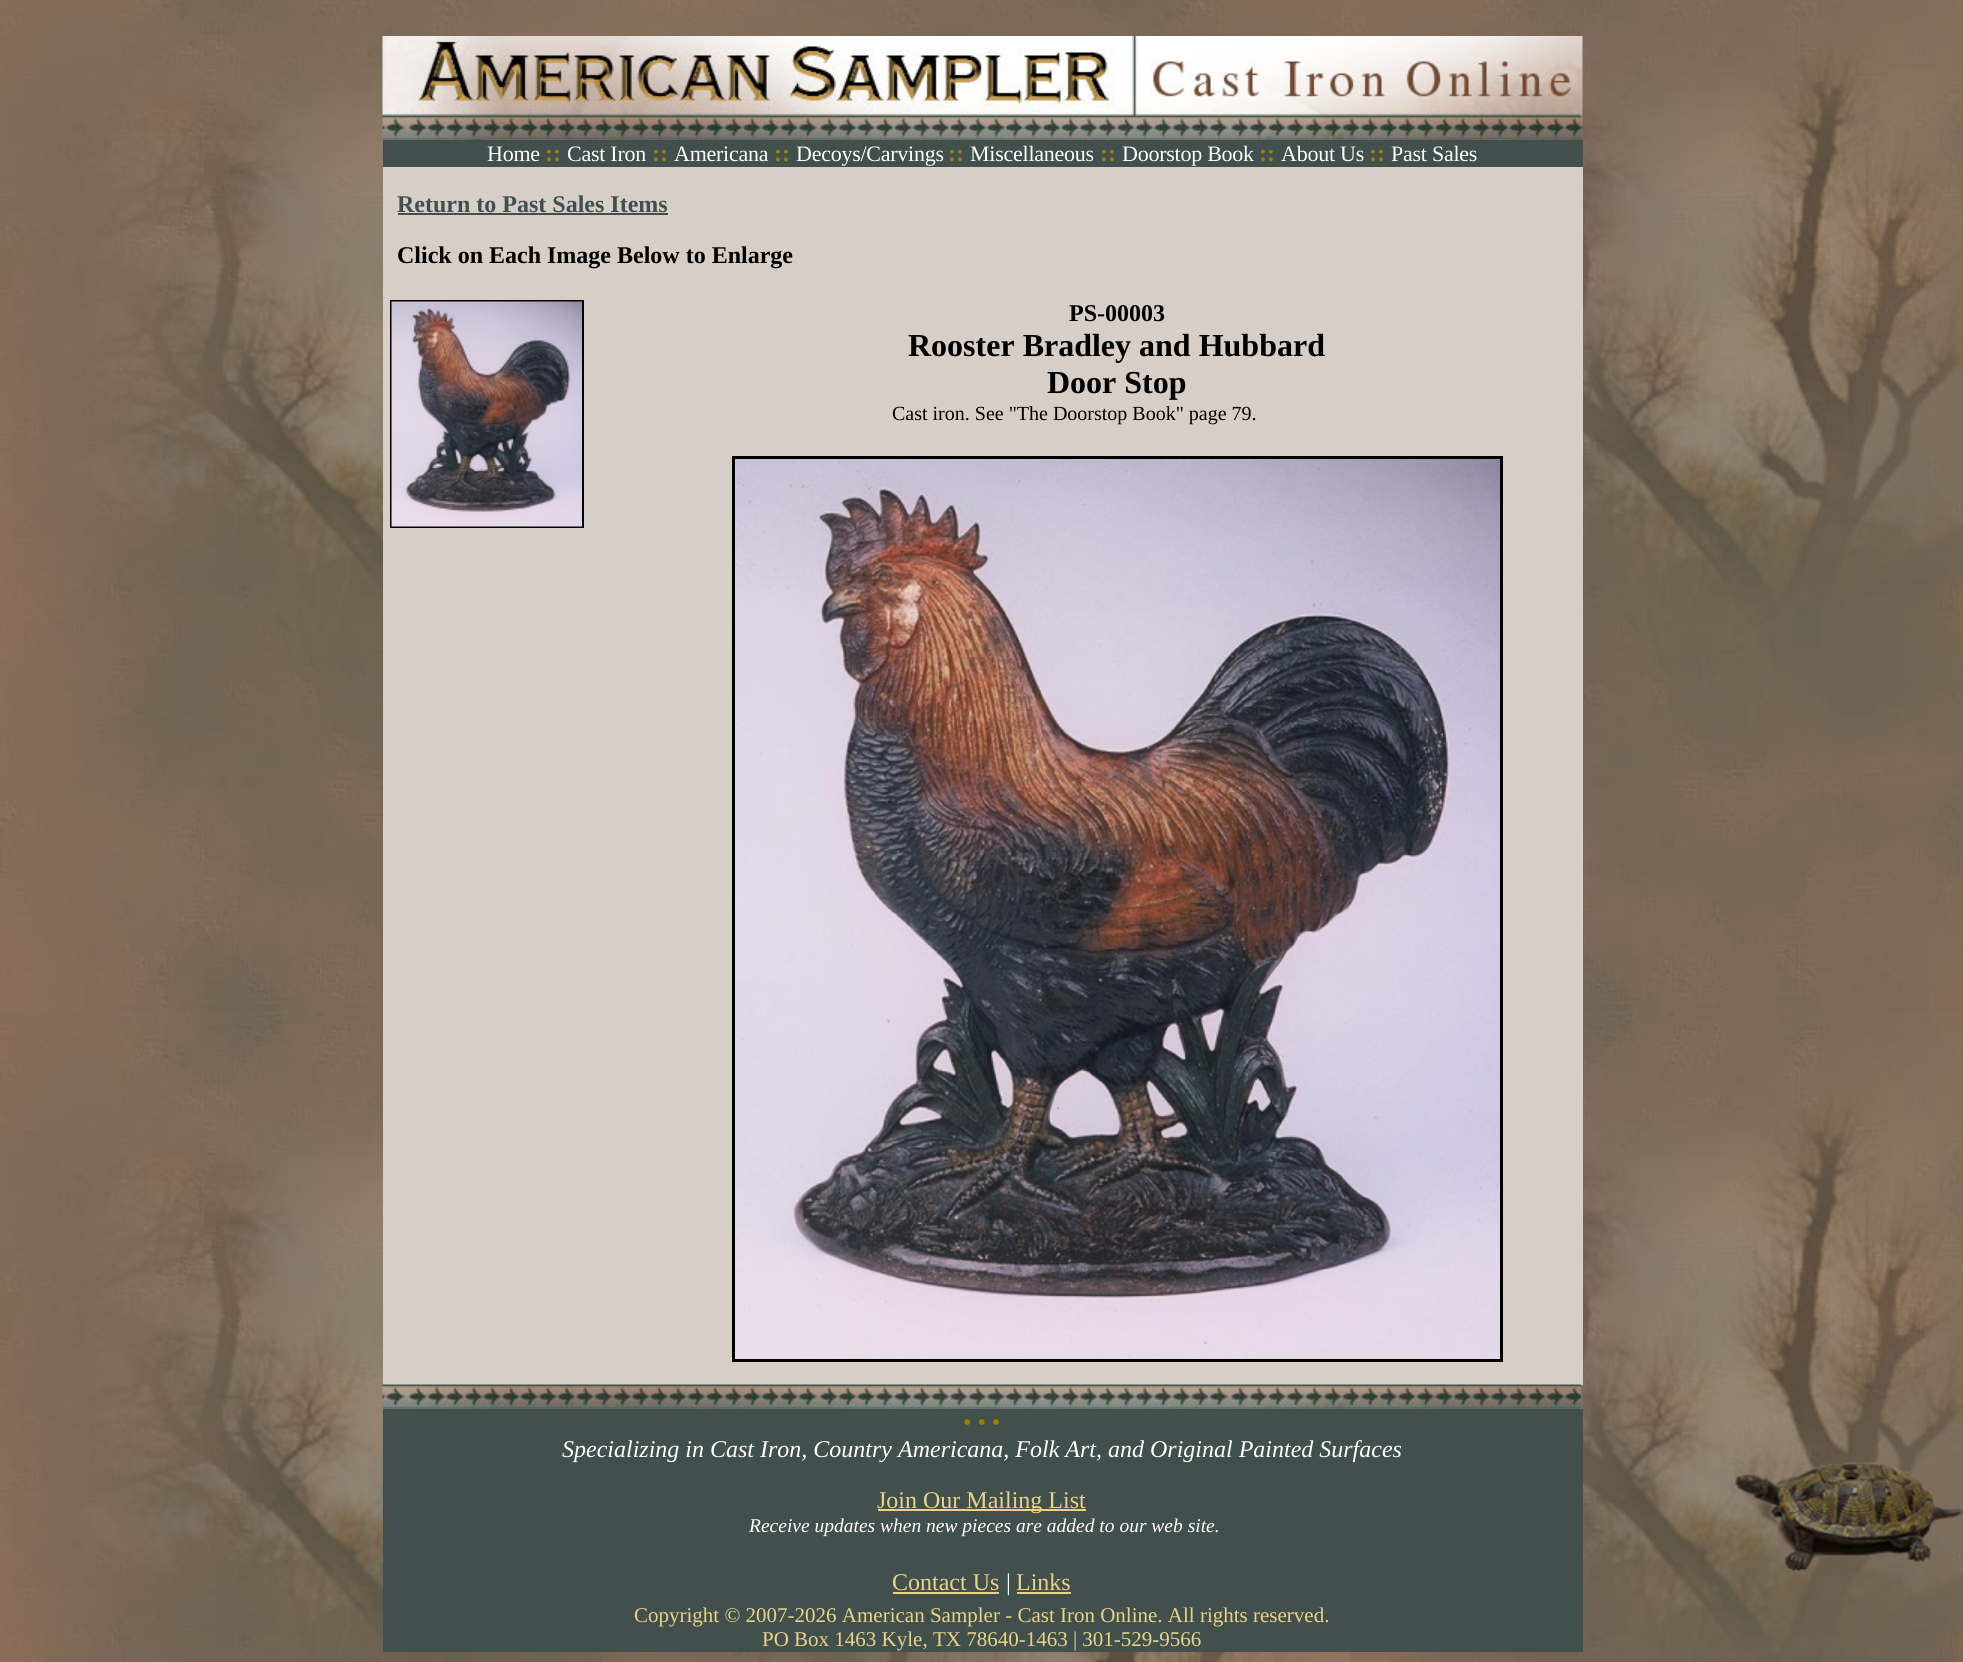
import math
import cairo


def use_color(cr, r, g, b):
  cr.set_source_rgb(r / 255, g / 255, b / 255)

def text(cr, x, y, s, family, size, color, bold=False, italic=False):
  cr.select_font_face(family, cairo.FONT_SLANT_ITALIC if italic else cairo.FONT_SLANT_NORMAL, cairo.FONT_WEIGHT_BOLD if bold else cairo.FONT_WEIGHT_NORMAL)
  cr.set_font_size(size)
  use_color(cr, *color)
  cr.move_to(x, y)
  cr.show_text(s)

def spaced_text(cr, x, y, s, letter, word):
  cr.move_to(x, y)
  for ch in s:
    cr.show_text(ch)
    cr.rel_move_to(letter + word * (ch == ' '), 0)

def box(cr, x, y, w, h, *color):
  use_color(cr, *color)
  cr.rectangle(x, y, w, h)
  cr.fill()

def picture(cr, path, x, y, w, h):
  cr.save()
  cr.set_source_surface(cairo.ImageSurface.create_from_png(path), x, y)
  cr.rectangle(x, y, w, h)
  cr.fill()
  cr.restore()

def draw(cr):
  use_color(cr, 255, 255, 255)
  cr.paint()
  picture(cr, "img_01.png", 0, 0, 1963, 1662)
  picture(cr, "img_02.png", 382, 36, 1201, 104)
  box(cr, 383, 140, 1200, 27, 65, 80, 77)
  box(cr, 383, 167, 1200, 1218, 214, 206, 199)
  box(cr, 398, 213, 270, 2, 65, 80, 77)
  cr.rectangle(391, 301, 192, 226)
  use_color(cr, 0, 0, 0)
  cr.stroke()
  picture(cr, "img_03.png", 391, 301, 191, 226)
  cr.rectangle(733.5, 457.5, 768, 903)
  cr.set_line_width(3)
  cr.stroke()
  picture(cr, "img_04.png", 735, 459, 765, 900)
  box(cr, 383, 1385, 1200, 24, 111, 114, 105)
  picture(cr, "img_05.png", 382, 1384, 1199, 25)
  box(cr, 383, 1409, 1200, 243, 65, 80, 77)
  box(cr, 878, 1509, 208, 2, 234, 211, 134)
  picture(cr, "img_06.png", 1735, 1462, 228, 110)
  box(cr, 893, 1592, 106, 2, 234, 211, 134)
  box(cr, 1017, 1592, 54, 2, 234, 211, 134)
  cr.select_font_face("Liberation Serif")
  cr.set_font_size(22)
  use_color(cr, 255, 255, 255)
  spaced_text(cr, 487, 161, "Home", -0.25, 0)
  text(cr, 545, 161, "::", "Liberation Serif", 24, (162, 126, 6), bold=True)
  cr.select_font_face("Liberation Serif")
  cr.set_font_size(22)
  use_color(cr, 255, 255, 255)
  spaced_text(cr, 567, 161, "Cast Iron", -0.25, 0)
  text(cr, 652, 161, "::", "Liberation Serif", 24, (162, 126, 6), bold=True)
  cr.select_font_face("Liberation Serif")
  cr.set_font_size(22)
  use_color(cr, 255, 255, 255)
  spaced_text(cr, 674, 161, "Americana", -0.25, 0)
  text(cr, 774, 161, "::", "Liberation Serif", 24, (162, 126, 6), bold=True)
  cr.select_font_face("Liberation Serif")
  cr.set_font_size(22)
  use_color(cr, 255, 255, 255)
  spaced_text(cr, 796, 161, "Decoys/Carvings", -0.25, 0)
  text(cr, 948, 161, "::", "Liberation Serif", 24, (162, 126, 6), bold=True)
  cr.select_font_face("Liberation Serif")
  cr.set_font_size(22)
  use_color(cr, 255, 255, 255)
  spaced_text(cr, 970, 161, "Miscellaneous", -0.25, 0)
  text(cr, 1100, 161, "::", "Liberation Serif", 24, (162, 126, 6), bold=True)
  cr.select_font_face("Liberation Serif")
  cr.set_font_size(22)
  use_color(cr, 255, 255, 255)
  spaced_text(cr, 1122, 161, "Doorstop Book", -0.25, 0)
  text(cr, 1259, 161, "::", "Liberation Serif", 24, (162, 126, 6), bold=True)
  cr.select_font_face("Liberation Serif")
  cr.set_font_size(22)
  use_color(cr, 255, 255, 255)
  spaced_text(cr, 1281, 161, "About Us", -0.25, 0)
  text(cr, 1369, 161, "::", "Liberation Serif", 24, (162, 126, 6), bold=True)
  cr.select_font_face("Liberation Serif")
  cr.set_font_size(22)
  use_color(cr, 255, 255, 255)
  spaced_text(cr, 1391, 161, "Past Sales", -0.25, 0)
  text(cr, 397, 212, "Return to Past Sales Items", "Liberation Serif", 24, (65, 80, 77), bold=True)
  text(cr, 397, 263, "Click on Each Image Below to Enlarge", "Liberation Serif", 24, (0, 0, 0), bold=True)
  text(cr, 1069, 321, "PS-00003", "Liberation Serif", 24, (0, 0, 0), bold=True)
  text(cr, 908, 356, "Rooster Bradley and Hubbard", "Liberation Serif", 32, (0, 0, 0), bold=True)
  text(cr, 1047, 393, "Door Stop", "Liberation Serif", 32, (0, 0, 0), bold=True)
  text(cr, 892, 420, "Cast iron. See \"The Doorstop Book\" page 79.", "Liberation Serif", 20, (0, 0, 0))
  text(cr, 963, 1430, "• • •", "Liberation Serif", 24, (162, 126, 6))
  text(cr, 562, 1457, "Specializing in Cast Iron, Country Americana, Folk Art, and Original Painted Surfaces", "Liberation Serif", 24, (255, 255, 255), italic=True)
  text(cr, 877, 1508, "Join Our Mailing List", "Liberation Serif", 24, (234, 211, 134))
  text(cr, 749, 1532, "Receive updates when new pieces are added to our web site.", "Liberation Serif", 19.5, (255, 255, 255), italic=True)
  text(cr, 892, 1590, "Contact Us", "Liberation Serif", 24, (234, 211, 134))
  text(cr, 1006, 1590, "|", "Liberation Serif", 24, (255, 255, 255))
  text(cr, 1016, 1590, "Links", "Liberation Serif", 24, (234, 211, 134))
  text(cr, 634, 1622, "Copyright © 2007-2026 American Sampler - Cast Iron Online. All rights reserved.", "Liberation Serif", 21, (234, 211, 134))
  text(cr, 762, 1646, "PO Box 1463 Kyle, TX 78640-1463 | 301-529-9566", "Liberation Serif", 21, (234, 211, 134))


surface = cairo.ImageSurface(cairo.FORMAT_RGB24, 1963, 1662)
cr = cairo.Context(surface)
options = cairo.FontOptions()
options.set_hint_metrics(cairo.HINT_METRICS_OFF)
options.set_hint_style(cairo.HINT_STYLE_NONE)
cr.set_font_options(options)
cr.set_miter_limit(4)
draw(cr)
surface.write_to_png("out.png")
